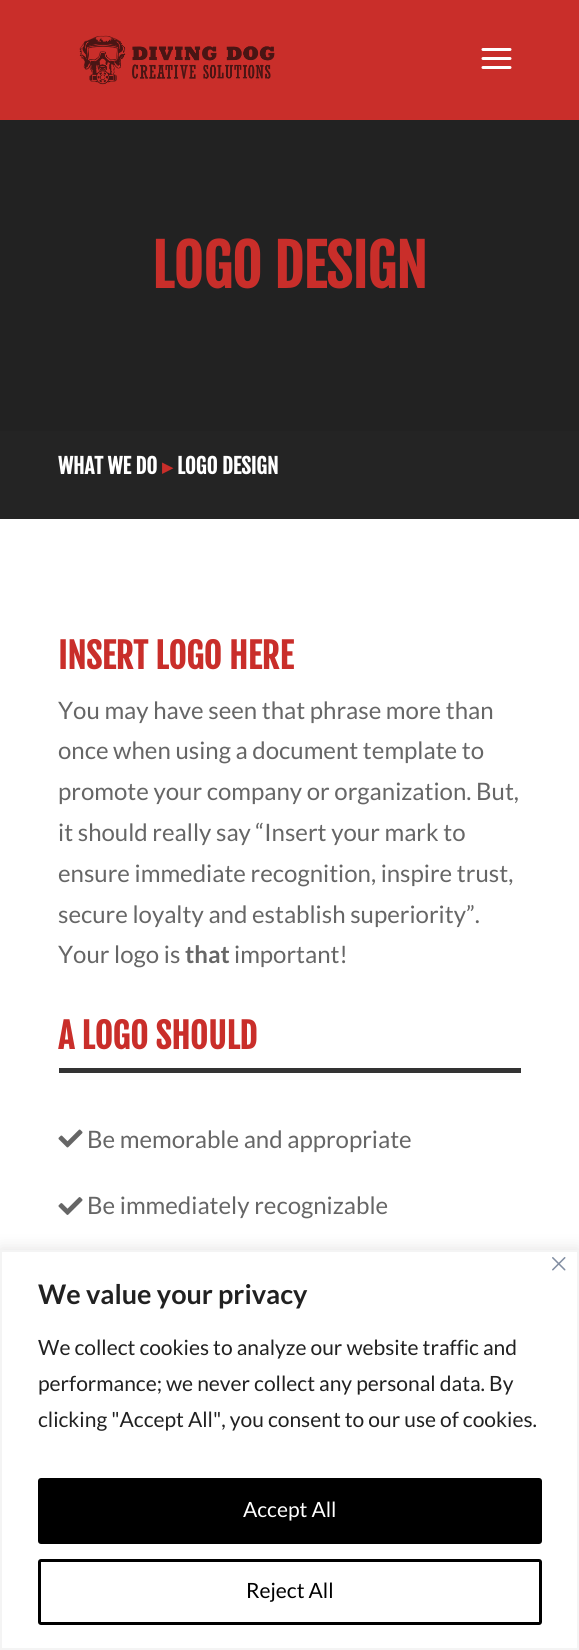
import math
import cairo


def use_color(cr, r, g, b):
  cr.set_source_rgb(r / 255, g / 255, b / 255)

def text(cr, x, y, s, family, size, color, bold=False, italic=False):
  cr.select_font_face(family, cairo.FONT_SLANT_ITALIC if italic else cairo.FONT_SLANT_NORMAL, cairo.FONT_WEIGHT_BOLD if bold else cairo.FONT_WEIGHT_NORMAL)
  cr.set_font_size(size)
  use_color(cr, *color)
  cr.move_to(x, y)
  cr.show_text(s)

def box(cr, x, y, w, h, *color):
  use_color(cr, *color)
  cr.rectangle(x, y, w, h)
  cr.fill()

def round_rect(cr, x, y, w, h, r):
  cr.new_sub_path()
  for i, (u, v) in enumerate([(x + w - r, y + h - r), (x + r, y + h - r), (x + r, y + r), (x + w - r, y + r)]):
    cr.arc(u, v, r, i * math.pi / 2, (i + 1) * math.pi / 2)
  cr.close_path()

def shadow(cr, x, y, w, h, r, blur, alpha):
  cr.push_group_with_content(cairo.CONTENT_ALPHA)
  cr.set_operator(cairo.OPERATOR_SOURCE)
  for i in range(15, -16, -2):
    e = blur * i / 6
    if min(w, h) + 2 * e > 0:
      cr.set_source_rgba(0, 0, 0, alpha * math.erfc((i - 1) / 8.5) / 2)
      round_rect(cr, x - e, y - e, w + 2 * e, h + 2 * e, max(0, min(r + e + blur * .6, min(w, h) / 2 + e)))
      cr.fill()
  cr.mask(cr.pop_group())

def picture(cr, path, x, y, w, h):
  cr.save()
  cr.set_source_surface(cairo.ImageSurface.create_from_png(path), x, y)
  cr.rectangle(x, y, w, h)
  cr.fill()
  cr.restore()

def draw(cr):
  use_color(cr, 255, 255, 255)
  cr.paint()
  box(cr, 0, 0, 579, 120, 201, 46, 42)
  picture(cr, "img_01.png", 79, 35, 196, 50)
  picture(cr, "img_02.png", 481, 48, 31, 21)
  box(cr, 0, 120, 579, 311, 34, 34, 34)
  box(cr, 0, 431, 579, 88, 36, 36, 36)
  box(cr, 59, 1068, 462, 5, 51, 51, 51)
  picture(cr, "img_03.png", 58, 1129, 25, 19)
  picture(cr, "img_04.png", 58, 1197, 25, 18)
  use_color(cr, 172, 171, 171)
  shadow(cr, 0, 1248, 579, 401, 0, 7.5, 0.3)
  use_color(cr, 255, 255, 255)
  cr.rectangle(1, 1251, 577, 398)
  cr.fill_preserve()
  use_color(cr, 244, 244, 244)
  cr.stroke()
  picture(cr, "img_05.png", 552, 1257, 14, 14)
  use_color(cr, 0, 0, 0)
  round_rect(cr, 39.5, 1479.5, 501, 63, 1.5)
  cr.fill_preserve()
  cr.set_line_width(3)
  cr.stroke()
  round_rect(cr, 39.5, 1560.5, 501, 63, 1.5)
  cr.stroke()
  text(cr, 152, 288, "LOGO DESIGN", "Fjalla One", 57, (201, 46, 42), bold=True)
  text(cr, 58, 474, "WHAT WE DO", "Fjalla One", 21, (255, 255, 255), bold=True)
  text(cr, 162, 474, "▸", "DejaVu Sans", 21, (201, 46, 42), bold=True)
  text(cr, 177, 474, "LOGO DESIGN", "Fjalla One", 21, (255, 255, 255), bold=True)
  text(cr, 58, 669, "INSERT LOGO HERE", "Fjalla One", 34.5, (201, 46, 42), bold=True)
  text(cr, 58, 719, "You may have seen that phrase more than", "Lato", 24, (102, 102, 102))
  text(cr, 58, 759, "once when using a document template to", "Lato", 24, (102, 102, 102))
  text(cr, 58, 800, "promote your company or organization. But,", "Lato", 24, (102, 102, 102))
  text(cr, 58, 841, "it should really say “Insert your mark to", "Lato", 24, (102, 102, 102))
  text(cr, 58, 882, "ensure immediate recognition, inspire trust,", "Lato", 24, (102, 102, 102))
  text(cr, 58, 923, "secure loyalty and establish superiority”.", "Lato", 24, (102, 102, 102))
  text(cr, 58, 963, "Your logo is", "Lato", 24, (102, 102, 102))
  text(cr, 185, 963, "that", "Lato", 24, (102, 102, 102), bold=True)
  text(cr, 234, 963, "important!", "Lato", 24, (102, 102, 102))
  text(cr, 58, 1049, "A LOGO SHOULD", "Fjalla One", 34.5, (201, 46, 42), bold=True)
  text(cr, 87, 1148, "Be memorable and appropriate", "Lato", 24, (102, 102, 102))
  text(cr, 87, 1214, "Be immediately recognizable", "Lato", 24, (102, 102, 102))
  text(cr, 38, 1304, "We value your privacy", "Lato", 27, (33, 33, 33), bold=True)
  text(cr, 38, 1355, "We collect cookies to analyze our website traffic and", "Lato", 21, (33, 33, 33))
  text(cr, 38, 1391, "performance; we never collect any personal data. By", "Lato", 21, (33, 33, 33))
  text(cr, 38, 1427, "clicking \"Accept All\", you consent to our use of cookies.", "Lato", 21, (33, 33, 33))
  text(cr, 243, 1517, "Accept All", "Lato", 21, (255, 255, 255))
  text(cr, 246, 1598, "Reject All", "Lato", 21, (0, 0, 0))


surface = cairo.ImageSurface(cairo.FORMAT_RGB24, 579, 1650)
cr = cairo.Context(surface)
options = cairo.FontOptions()
options.set_hint_metrics(cairo.HINT_METRICS_OFF)
options.set_hint_style(cairo.HINT_STYLE_NONE)
cr.set_font_options(options)
cr.set_miter_limit(4)
draw(cr)
surface.write_to_png("out.png")
